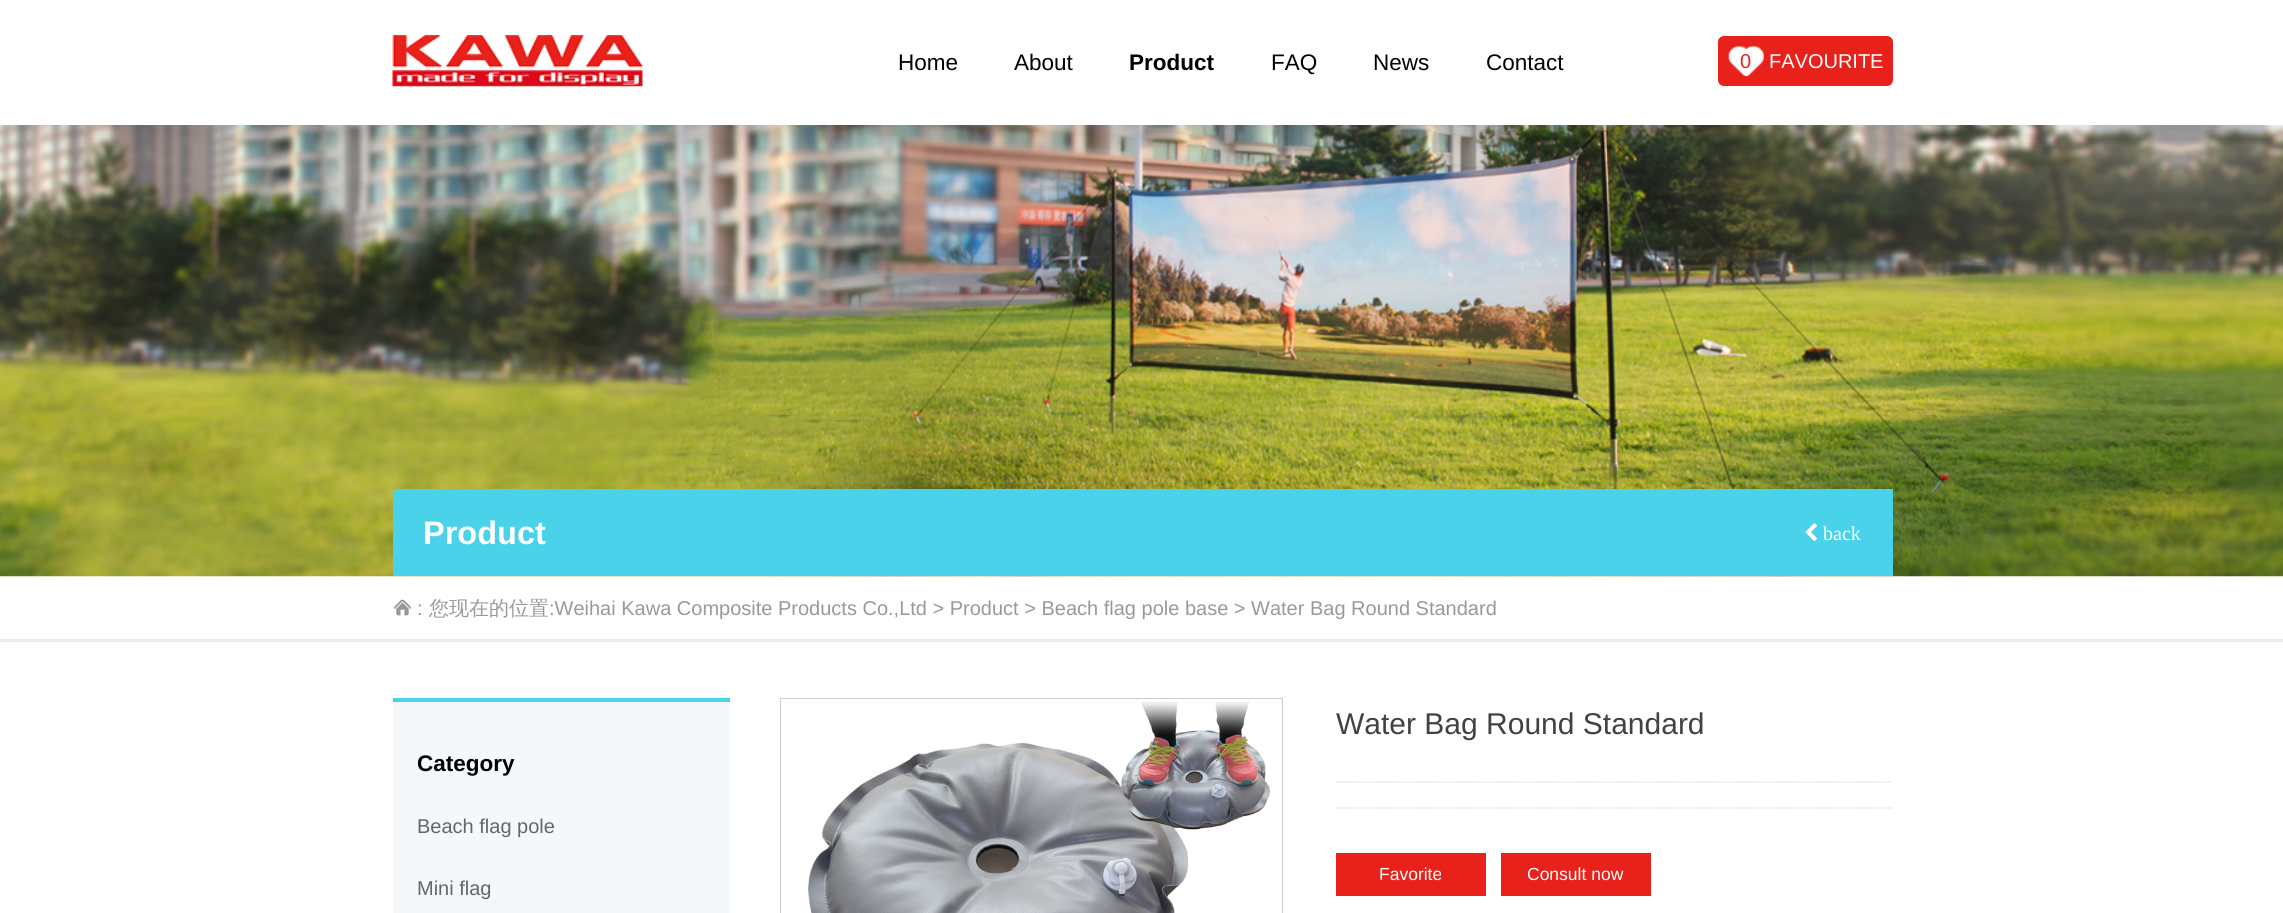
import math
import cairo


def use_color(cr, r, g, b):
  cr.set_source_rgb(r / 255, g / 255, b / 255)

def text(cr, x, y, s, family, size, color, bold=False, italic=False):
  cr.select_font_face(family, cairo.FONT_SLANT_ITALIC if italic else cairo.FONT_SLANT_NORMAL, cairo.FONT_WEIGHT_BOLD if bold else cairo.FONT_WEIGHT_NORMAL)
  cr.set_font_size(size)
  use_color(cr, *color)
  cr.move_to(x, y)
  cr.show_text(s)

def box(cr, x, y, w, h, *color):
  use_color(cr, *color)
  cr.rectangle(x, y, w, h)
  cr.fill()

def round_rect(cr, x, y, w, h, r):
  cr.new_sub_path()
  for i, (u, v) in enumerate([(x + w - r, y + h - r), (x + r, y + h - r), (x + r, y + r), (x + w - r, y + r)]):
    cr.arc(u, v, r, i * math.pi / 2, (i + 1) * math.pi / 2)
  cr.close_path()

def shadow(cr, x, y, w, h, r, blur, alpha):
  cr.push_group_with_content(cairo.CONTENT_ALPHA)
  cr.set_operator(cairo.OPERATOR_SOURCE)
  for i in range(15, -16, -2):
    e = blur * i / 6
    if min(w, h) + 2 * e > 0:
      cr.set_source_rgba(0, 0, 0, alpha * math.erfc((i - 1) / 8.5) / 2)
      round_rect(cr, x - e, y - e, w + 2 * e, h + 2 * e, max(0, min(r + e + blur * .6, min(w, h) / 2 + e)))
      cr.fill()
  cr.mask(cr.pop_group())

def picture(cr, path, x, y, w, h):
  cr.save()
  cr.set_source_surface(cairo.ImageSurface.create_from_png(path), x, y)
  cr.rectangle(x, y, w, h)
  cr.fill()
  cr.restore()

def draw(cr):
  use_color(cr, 255, 255, 255)
  cr.paint()
  picture(cr, "img_03.png", 0, 125, 2283, 452)
  use_color(cr, 0, 0, 0)
  shadow(cr, 0, 13, 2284, 125, 0, 12.5, 0.1)
  box(cr, 0, 0, 2283, 125, 255, 255, 255)
  picture(cr, "img_01.png", 392, 35, 251, 52)
  use_color(cr, 232, 34, 27)
  round_rect(cr, 1718, 36, 175, 50, 6)
  cr.fill()
  picture(cr, "img_02.png", 1728, 46, 36, 31)
  box(cr, 393, 489, 1500, 87, 74, 210, 235)
  picture(cr, "img_04.png", 1805, 523, 12, 19)
  box(cr, 0, 639, 2283, 3, 234, 235, 235)
  picture(cr, "img_05.png", 394, 599, 17, 17)
  box(cr, 393, 702, 337, 211, 244, 248, 251)
  box(cr, 393, 698, 337, 4, 74, 210, 235)
  cr.rectangle(780.5, 698.5, 502, 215)
  use_color(cr, 204, 204, 204)
  cr.set_line_width(1)
  cr.stroke()
  picture(cr, "img_06.png", 808, 701, 462, 212)
  cr.new_path()
  cr.move_to(1336, 782)
  cr.line_to(1892.5, 782)
  use_color(cr, 214, 214, 214)
  cr.set_line_width(1.2)
  cr.set_dash([1.25, 1.25])
  cr.stroke()
  cr.new_path()
  cr.move_to(1336, 808)
  cr.line_to(1892.5, 808)
  cr.stroke()
  box(cr, 1336, 853, 150, 43, 232, 34, 27)
  box(cr, 1501, 853, 150, 43, 232, 34, 27)
  text(cr, 898, 70, "Home", "Liberation Sans", 22.5, (0, 0, 0))
  text(cr, 1014, 70, "About", "Liberation Sans", 22.5, (0, 0, 0))
  text(cr, 1129, 70, "Product", "Liberation Sans", 22.5, (0, 0, 0), bold=True)
  text(cr, 1271, 70, "FAQ", "Liberation Sans", 22.5, (0, 0, 0))
  text(cr, 1373, 70, "News", "Liberation Sans", 22.5, (0, 0, 0))
  text(cr, 1486, 70, "Contact", "Liberation Sans", 22.5, (0, 0, 0))
  text(cr, 1740, 68, "0", "Liberation Sans", 20, (232, 34, 27))
  text(cr, 1769, 68, "FAVOURITE", "Liberation Sans", 20, (255, 255, 255))
  text(cr, 423, 544, "Product", "Liberation Sans", 32.5, (255, 255, 255), bold=True)
  text(cr, 1823, 540, "back", "Liberation Serif", 20, (255, 255, 255))
  text(cr, 417, 615, ":", "Liberation Sans", 20, (153, 153, 153))
  text(cr, 429, 615, "您现在的位置", "WenQuanYi Zen Hei Medium", 20, (153, 153, 153))
  text(cr, 549, 615, ":Weihai Kawa Composite Products Co.,Ltd > Product > Beach flag pole base > Water Bag Round Standard", "Liberation Sans", 20, (153, 153, 153))
  text(cr, 417, 771, "Category", "Liberation Sans", 22.5, (0, 0, 0), bold=True)
  text(cr, 417, 833, "Beach flag pole", "Liberation Sans", 20, (102, 102, 102))
  text(cr, 417, 895, "Mini flag", "Liberation Sans", 20, (102, 102, 102))
  text(cr, 1336, 734, "Water Bag Round Standard", "Liberation Sans", 30, (66, 66, 66))
  text(cr, 1379, 880, "Favorite", "Liberation Sans", 17.5, (255, 255, 255))
  text(cr, 1527, 880, "Consult now", "Liberation Sans", 17.5, (255, 255, 255))


surface = cairo.ImageSurface(cairo.FORMAT_RGB24, 2283, 913)
cr = cairo.Context(surface)
options = cairo.FontOptions()
options.set_hint_metrics(cairo.HINT_METRICS_OFF)
options.set_hint_style(cairo.HINT_STYLE_NONE)
cr.set_font_options(options)
cr.set_miter_limit(4)
draw(cr)
surface.write_to_png("out.png")
